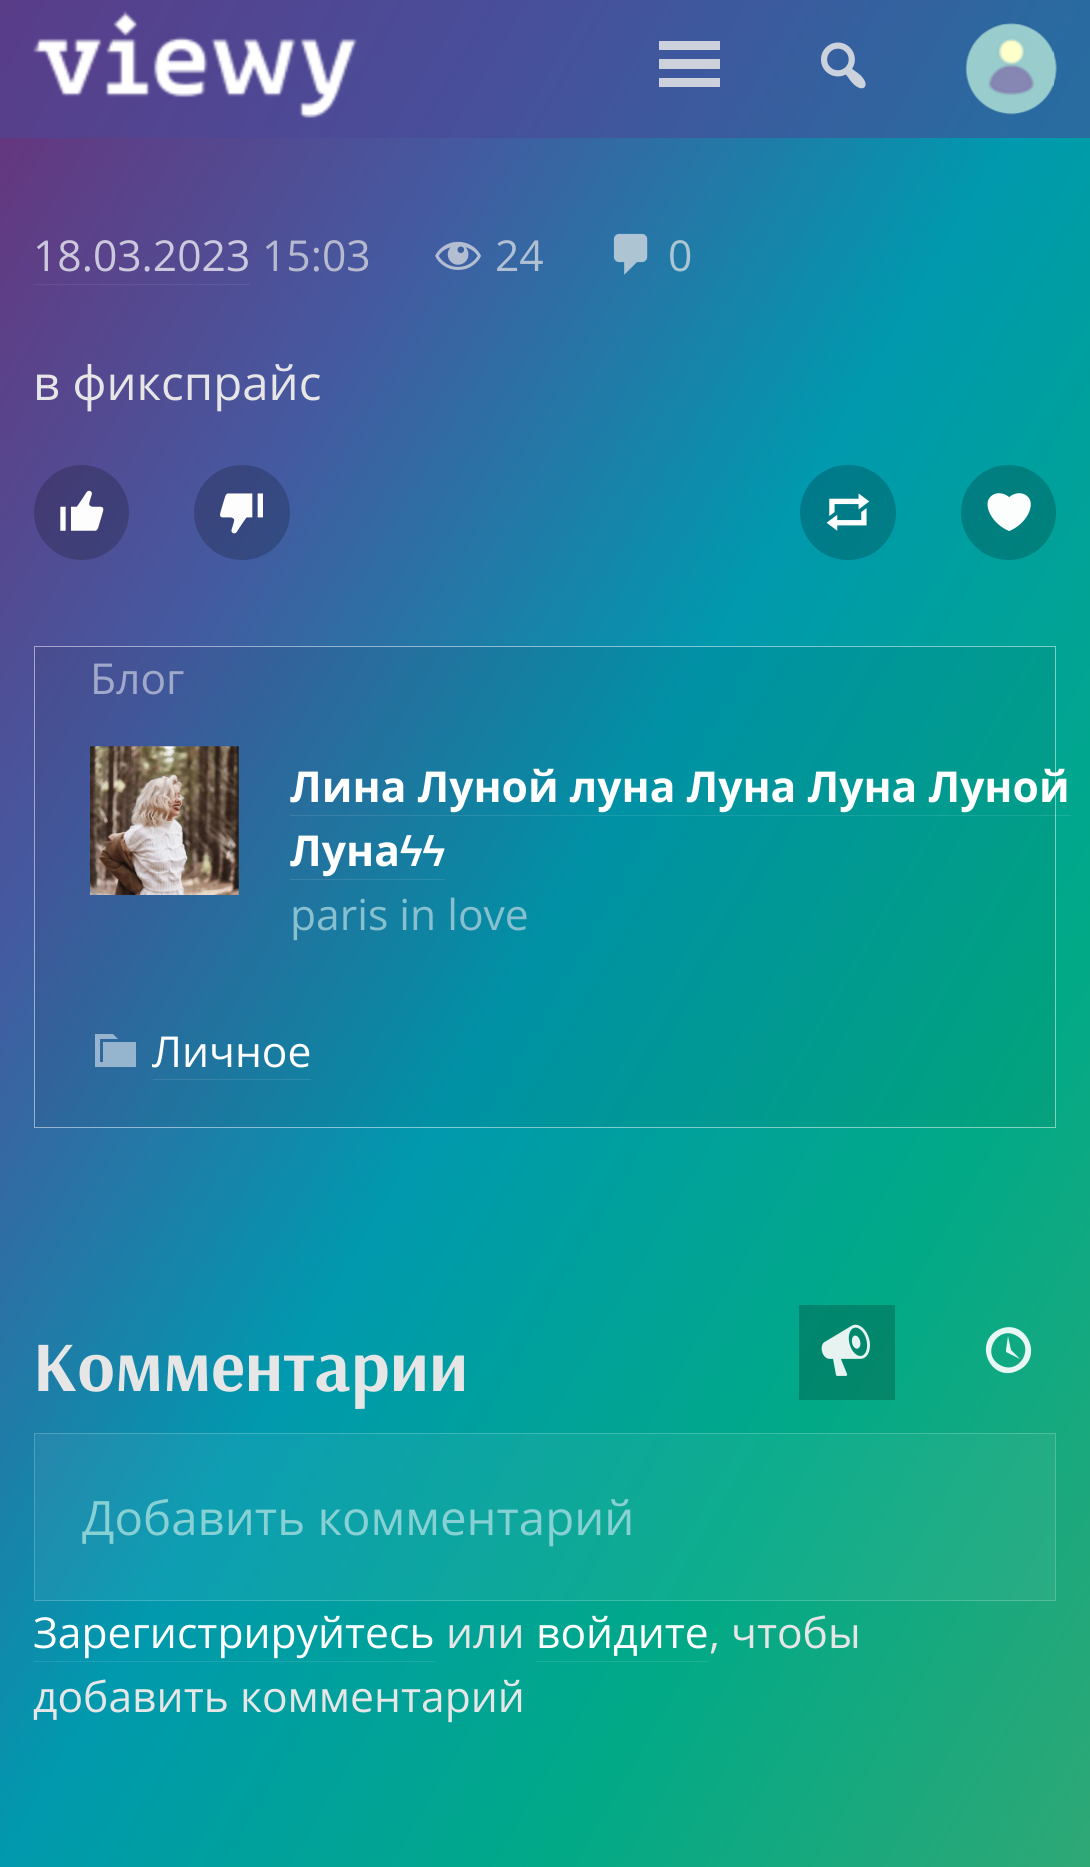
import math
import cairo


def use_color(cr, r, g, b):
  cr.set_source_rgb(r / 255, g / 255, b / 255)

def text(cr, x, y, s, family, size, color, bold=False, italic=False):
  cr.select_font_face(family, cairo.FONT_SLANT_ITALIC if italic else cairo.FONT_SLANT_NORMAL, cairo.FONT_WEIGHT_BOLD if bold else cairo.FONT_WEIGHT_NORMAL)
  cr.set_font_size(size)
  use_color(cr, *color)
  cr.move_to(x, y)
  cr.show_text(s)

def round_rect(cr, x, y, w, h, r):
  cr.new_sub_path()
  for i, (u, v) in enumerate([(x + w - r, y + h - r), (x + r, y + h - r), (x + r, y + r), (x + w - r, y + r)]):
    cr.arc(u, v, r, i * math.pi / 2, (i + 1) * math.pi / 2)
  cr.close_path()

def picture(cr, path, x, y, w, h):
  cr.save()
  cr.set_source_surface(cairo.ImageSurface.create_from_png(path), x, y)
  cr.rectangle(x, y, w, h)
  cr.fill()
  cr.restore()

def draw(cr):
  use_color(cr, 255, 255, 255)
  cr.paint()
  gradient = cairo.LinearGradient(-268, 459, 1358, 1408)
  gradient.add_color_stop_rgba(0, 0.416, 0.192, 0.475, 1)
  gradient.add_color_stop_rgba(0.25, 0.271, 0.349, 0.627, 1)
  gradient.add_color_stop_rgba(0.5, 0, 0.6, 0.682, 1)
  gradient.add_color_stop_rgba(0.75, 0.004, 0.663, 0.529, 1)
  gradient.add_color_stop_rgba(1, 0.184, 0.659, 0.459, 1)
  cr.set_source(gradient)
  cr.rectangle(0, 138, 1090, 1729)
  cr.fill()
  gradient = cairo.LinearGradient(-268, 459, 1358, 1408)
  gradient.add_color_stop_rgba(0, 0.349, 0.239, 0.537, 1)
  gradient.add_color_stop_rgba(0.25, 0.282, 0.31, 0.608, 1)
  gradient.add_color_stop_rgba(0.5, 0.161, 0.42, 0.631, 1)
  gradient.add_color_stop_rgba(0.75, 0.165, 0.451, 0.561, 1)
  gradient.add_color_stop_rgba(1, 0.243, 0.447, 0.529, 1)
  cr.set_source(gradient)
  cr.rectangle(0, 0, 1090, 138)
  cr.fill()
  gradient = cairo.LinearGradient(-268, 459, 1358, 1408)
  gradient.add_color_stop_rgba(0, 0.443, 0.231, 0.502, 1)
  gradient.add_color_stop_rgba(0.25, 0.306, 0.38, 0.647, 1)
  gradient.add_color_stop_rgba(0.5, 0.051, 0.62, 0.698, 1)
  gradient.add_color_stop_rgba(0.75, 0.055, 0.678, 0.553, 1)
  gradient.add_color_stop_rgba(1, 0.224, 0.675, 0.486, 1)
  cr.set_source(gradient)
  cr.rectangle(34, 1433, 1022, 168)
  cr.fill()
  gradient = cairo.LinearGradient(-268, 459, 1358, 1408)
  gradient.add_color_stop_rgba(0, 0.455, 0.247, 0.51, 1)
  gradient.add_color_stop_rgba(0.25, 0.322, 0.396, 0.655, 1)
  gradient.add_color_stop_rgba(0.5, 0.071, 0.627, 0.706, 1)
  gradient.add_color_stop_rgba(0.75, 0.075, 0.686, 0.561, 1)
  gradient.add_color_stop_rgba(1, 0.243, 0.682, 0.498, 1)
  cr.set_source(gradient)
  cr.rectangle(34, 284, 216, 1)
  cr.fill()
  gradient = cairo.LinearGradient(-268, 459, 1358, 1408)
  gradient.add_color_stop_rgba(0, 0.475, 0.275, 0.525, 1)
  gradient.add_color_stop_rgba(0.25, 0.345, 0.416, 0.667, 1)
  gradient.add_color_stop_rgba(0.5, 0.102, 0.639, 0.714, 1)
  gradient.add_color_stop_rgba(0.75, 0.102, 0.698, 0.576, 1)
  gradient.add_color_stop_rgba(1, 0.267, 0.694, 0.514, 1)
  cr.set_source(gradient)
  cr.rectangle(536, 1661, 173, 1)
  cr.fill()
  cr.rectangle(34, 1661, 401, 1)
  cr.fill()
  gradient = cairo.LinearGradient(-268, 459, 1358, 1408)
  gradient.add_color_stop_rgba(0, 0.333, 0.153, 0.38, 1)
  gradient.add_color_stop_rgba(0.25, 0.216, 0.278, 0.502, 1)
  gradient.add_color_stop_rgba(0.5, 0, 0.478, 0.545, 1)
  gradient.add_color_stop_rgba(0.75, 0.004, 0.529, 0.424, 1)
  gradient.add_color_stop_rgba(1, 0.149, 0.525, 0.369, 1)
  cr.set_source(gradient)
  cr.rectangle(799, 1305, 96, 95)
  cr.fill()
  gradient = cairo.LinearGradient(-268, 459, 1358, 1408)
  gradient.add_color_stop_rgba(0, 0.396, 0.184, 0.451, 1)
  gradient.add_color_stop_rgba(0.25, 0.259, 0.333, 0.596, 1)
  gradient.add_color_stop_rgba(0.5, 0, 0.569, 0.647, 1)
  gradient.add_color_stop_rgba(0.75, 0.004, 0.631, 0.502, 1)
  gradient.add_color_stop_rgba(1, 0.176, 0.627, 0.435, 1)
  cr.set_source(gradient)
  cr.rectangle(34, 646, 1022, 482)
  cr.fill()
  gradient = cairo.LinearGradient(-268, 459, 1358, 1408)
  gradient.add_color_stop_rgba(0, 0.455, 0.267, 0.506, 1)
  gradient.add_color_stop_rgba(0.25, 0.333, 0.4, 0.635, 1)
  gradient.add_color_stop_rgba(0.5, 0.102, 0.612, 0.682, 1)
  gradient.add_color_stop_rgba(0.75, 0.102, 0.667, 0.553, 1)
  gradient.add_color_stop_rgba(1, 0.259, 0.667, 0.49, 1)
  cr.set_source(gradient)
  cr.rectangle(153, 1079, 158, 1)
  cr.fill()
  cr.rectangle(290, 879, 155, 1)
  cr.fill()
  picture(cr, "img_01.png", 33, 11, 324, 108)
  cr.set_source_rgba(0.902, 0.902, 0.902, 0.85)
  cr.new_path()
  cr.move_to(720, 50)
  cr.line_to(720, 41)
  cr.line_to(659, 41)
  cr.line_to(659, 50)
  cr.close_path()
  cr.move_to(720, 69)
  cr.line_to(720, 59)
  cr.line_to(659, 59)
  cr.line_to(659, 69)
  cr.close_path()
  cr.move_to(720, 87)
  cr.line_to(720, 78)
  cr.line_to(659, 78)
  cr.line_to(659, 87)
  cr.close_path()
  cr.fill()
  picture(cr, "img_02.png", 821, 42, 45, 47)
  picture(cr, "img_03.png", 965, 23, 92, 92)
  picture(cr, "img_04.png", 435, 241, 46, 29)
  picture(cr, "img_05.png", 613, 233, 35, 42)
  cr.set_source_rgba(0, 0, 0, 0.2)
  cr.arc(81.5, 512.5, 47.5, 0, 2 * math.pi)
  cr.fill()
  picture(cr, "img_06.png", 60, 490, 44, 41)
  round_rect(cr, 194, 465, 96, 95, 47.5)
  cr.fill()
  picture(cr, "img_07.png", 220, 493, 43, 41)
  round_rect(cr, 800, 465, 96, 95, 47.5)
  cr.fill()
  picture(cr, "img_08.png", 826, 493, 44, 38)
  cr.arc(1008.5, 512.5, 47.5, 0, 2 * math.pi)
  cr.fill()
  picture(cr, "img_09.png", 987, 493, 44, 38)
  cr.rectangle(34.5, 646.5, 1021, 481)
  cr.set_source_rgba(1, 1, 1, 0.5)
  cr.set_line_width(1)
  cr.stroke()
  picture(cr, "img_10.png", 90, 746, 149, 149)
  cr.set_source_rgba(1, 1, 1, 0.1)
  cr.rectangle(290, 815, 781, 1)
  cr.fill()
  cr.set_source_rgba(1, 1, 1, 0.5)
  cr.new_path()
  cr.move_to(103, 1042)
  cr.line_to(136, 1042)
  cr.line_to(136, 1067)
  cr.line_to(95, 1067)
  cr.line_to(95, 1034)
  cr.line_to(113, 1034)
  cr.line_to(118, 1039)
  cr.line_to(100, 1039)
  cr.line_to(100, 1062)
  cr.line_to(103, 1062)
  cr.close_path()
  cr.fill()
  picture(cr, "img_11.png", 821, 1324, 49, 52)
  cr.set_source_rgba(1, 1, 1, 0.9)
  cr.new_path()
  cr.move_to(1000, 1329)
  cr.curve_to(1027, 1318, 1045, 1359, 1017, 1371)
  cr.curve_to(990, 1383, 972, 1341, 1000, 1329)
  cr.close_path()
  cr.move_to(1000, 1365)
  cr.curve_to(1019, 1376, 1036, 1347, 1017, 1336)
  cr.curve_to(998, 1324, 980, 1354, 1000, 1365)
  cr.close_path()
  cr.move_to(1006, 1352)
  cr.line_to(1020, 1359)
  cr.line_to(1011, 1350)
  cr.line_to(1008, 1336)
  cr.line_to(1006, 1350)
  cr.curve_to(1006, 1351, 1006, 1352, 1006, 1352)
  cr.close_path()
  cr.fill()
  cr.rectangle(34.5, 1433.5, 1021, 167)
  cr.set_source_rgba(1, 1, 1, 0.2)
  cr.stroke()
  text(cr, 33, 271, "18.03.2023", "Open Sans", 42.6, (204, 200, 221))
  text(cr, 262, 271, "15:03", "Open Sans", 42.6, (183, 186, 207))
  text(cr, 495, 271, "24", "Open Sans", 42.6, (177, 192, 210))
  text(cr, 668, 271, "0", "Open Sans", 42.6, (171, 198, 211))
  text(cr, 33, 400, "в фикспрайс", "Open Sans", 47.4, (230, 230, 230))
  text(cr, 90, 694, "Блог", "Open Sans", 42.6, (161, 169, 203))
  text(cr, 290, 802, "Лина Луной луна Луна Луна Луной", "Open Sans", 42.6, (255, 255, 255), bold=True)
  text(cr, 290, 866, "Луна", "Open Sans", 42.6, (255, 255, 255), bold=True)
  text(cr, 400, 866, "ϟϟ", "Liberation Sans", 42.6, (255, 255, 255), bold=True)
  text(cr, 290, 930, "paris in love", "Open Sans", 42.6, (136, 192, 208))
  text(cr, 152, 1067, "Личное", "Open Sans", 42.6, (255, 255, 255))
  text(cr, 33, 1391, "Комментарии", "Arsenal", 71, (230, 230, 230), bold=True)
  text(cr, 82, 1535, "Добавить комментарий", "Open Sans", 47.4, (135, 208, 211))
  text(cr, 33, 1648, "Зарегистрируйтесь", "Open Sans", 42.6, (255, 255, 255))
  text(cr, 446, 1648, "или", "Open Sans", 42.6, (230, 230, 230))
  text(cr, 536, 1648, "войдите", "Open Sans", 42.6, (255, 255, 255))
  text(cr, 709, 1648, ", чтобы", "Open Sans", 42.6, (230, 230, 230))
  text(cr, 33, 1712, "добавить комментарий", "Open Sans", 42.6, (230, 230, 230))


surface = cairo.ImageSurface(cairo.FORMAT_RGB24, 1090, 1867)
cr = cairo.Context(surface)
options = cairo.FontOptions()
options.set_hint_metrics(cairo.HINT_METRICS_OFF)
options.set_hint_style(cairo.HINT_STYLE_NONE)
cr.set_font_options(options)
cr.set_miter_limit(4)
draw(cr)
surface.write_to_png("out.png")
